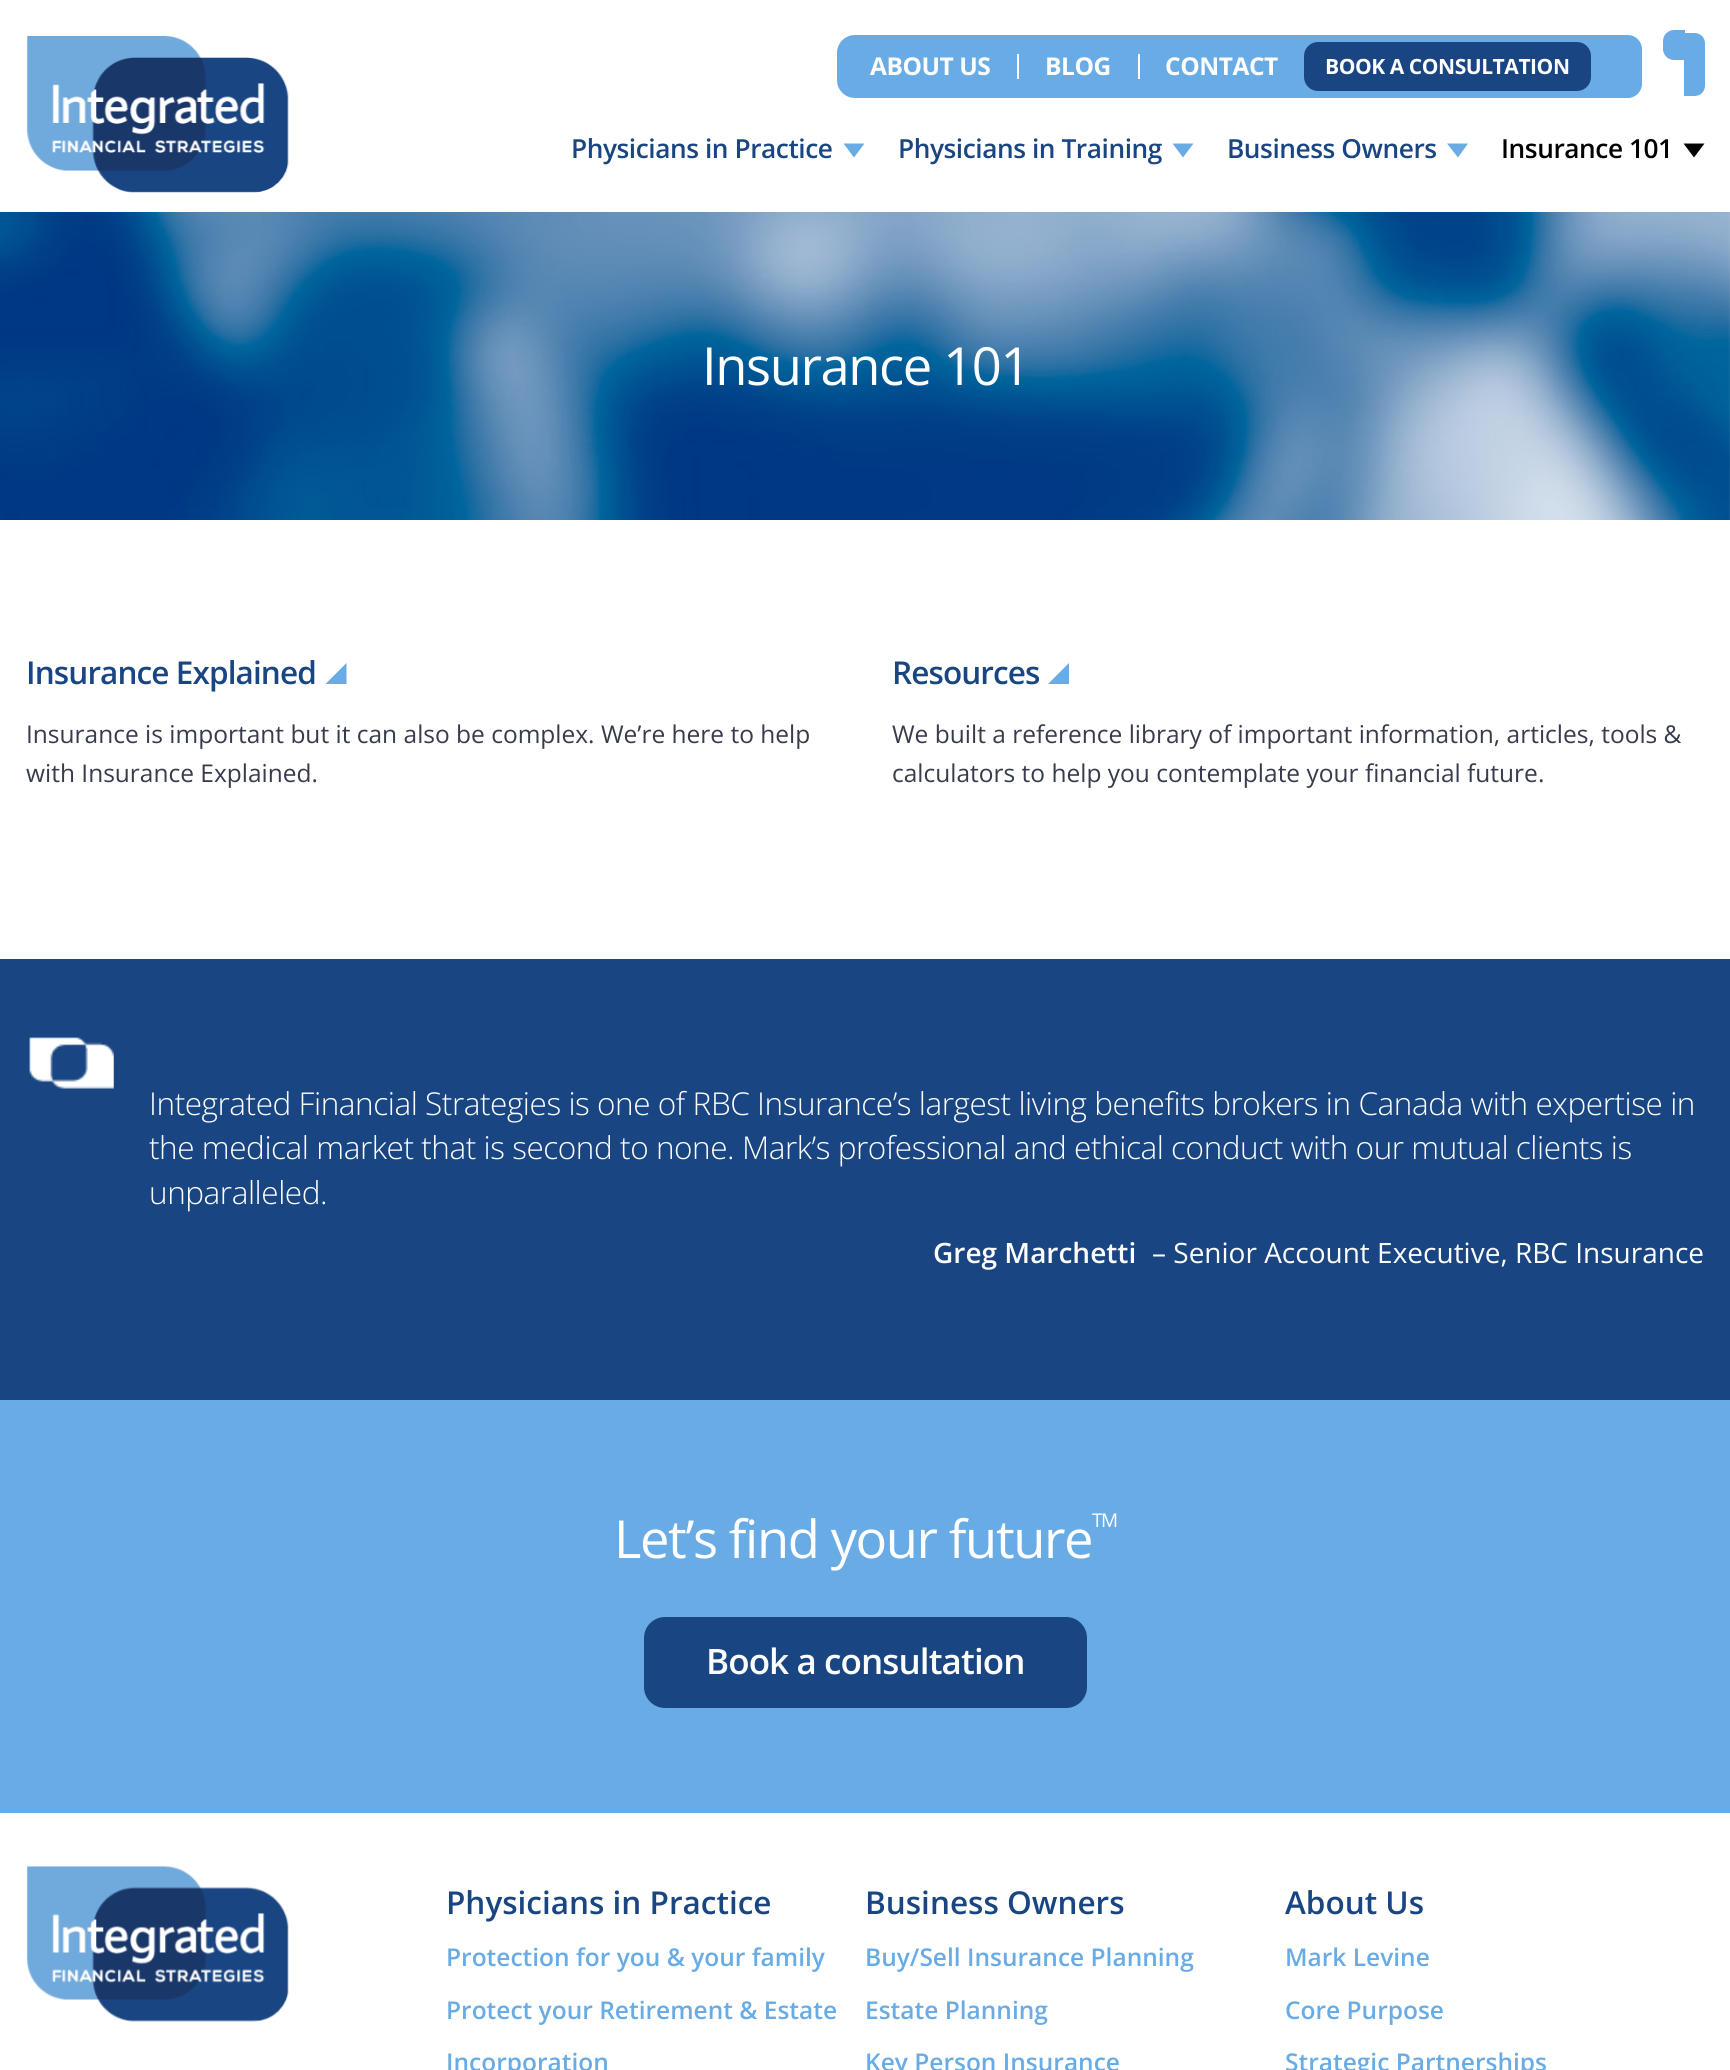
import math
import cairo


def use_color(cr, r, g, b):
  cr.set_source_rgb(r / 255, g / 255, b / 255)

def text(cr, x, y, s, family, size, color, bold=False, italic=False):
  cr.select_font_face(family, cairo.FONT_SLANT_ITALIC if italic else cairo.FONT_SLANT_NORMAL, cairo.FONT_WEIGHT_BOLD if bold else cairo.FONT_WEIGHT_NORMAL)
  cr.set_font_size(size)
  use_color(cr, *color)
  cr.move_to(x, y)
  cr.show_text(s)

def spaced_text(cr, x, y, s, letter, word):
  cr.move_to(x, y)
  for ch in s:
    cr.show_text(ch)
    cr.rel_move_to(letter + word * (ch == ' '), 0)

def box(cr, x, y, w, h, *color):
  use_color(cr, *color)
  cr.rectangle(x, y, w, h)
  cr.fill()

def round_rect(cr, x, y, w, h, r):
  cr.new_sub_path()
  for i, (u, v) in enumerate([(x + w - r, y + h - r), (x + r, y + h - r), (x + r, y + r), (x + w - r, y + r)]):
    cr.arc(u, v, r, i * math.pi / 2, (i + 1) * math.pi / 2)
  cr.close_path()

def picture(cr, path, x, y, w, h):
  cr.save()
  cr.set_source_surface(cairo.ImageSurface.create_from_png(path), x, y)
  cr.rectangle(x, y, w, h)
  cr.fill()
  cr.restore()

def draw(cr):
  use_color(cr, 255, 255, 255)
  cr.paint()
  picture(cr, "img_01.png", 26, 35, 263, 158)
  use_color(cr, 105, 172, 229)
  cr.new_path()
  cr.move_to(855, 35)
  cr.line_to(1596, 35)
  cr.line_to(1596, 98)
  cr.line_to(855, 98)
  cr.curve_to(845, 98, 837, 90, 837, 80)
  cr.line_to(837, 53)
  cr.curve_to(837, 43, 845, 35, 855, 35)
  cr.close_path()
  cr.fill()
  box(cr, 1017, 54, 2, 25, 254, 254, 254)
  box(cr, 1138, 54, 2, 25, 254, 254, 254)
  use_color(cr, 25, 70, 131)
  round_rect(cr, 1304, 42, 287, 49, 14)
  cr.fill()
  use_color(cr, 105, 172, 229)
  cr.new_path()
  cr.move_to(1596, 35)
  cr.line_to(1628, 35)
  cr.curve_to(1635.5, 35, 1642, 41.5, 1642, 49)
  cr.line_to(1642, 84)
  cr.curve_to(1642, 91.5, 1635.5, 98, 1628, 98)
  cr.line_to(1596, 98)
  cr.close_path()
  cr.fill()
  cr.new_path()
  cr.move_to(1674, 30)
  cr.line_to(1685, 30)
  cr.line_to(1685, 60)
  cr.line_to(1674, 60)
  cr.curve_to(1668, 60, 1663, 55, 1663, 49)
  cr.line_to(1663, 41)
  cr.curve_to(1663, 35, 1668, 30, 1674, 30)
  cr.close_path()
  cr.fill()
  cr.new_path()
  cr.move_to(1684, 33)
  cr.line_to(1694.5, 33)
  cr.curve_to(1700.5, 33, 1705, 37.5, 1705, 43.5)
  cr.line_to(1705, 85.5)
  cr.curve_to(1705, 91.5, 1700.5, 96, 1694.5, 96)
  cr.line_to(1684, 96)
  cr.close_path()
  cr.fill()
  cr.new_path()
  cr.move_to(843.5, 143.5)
  cr.line_to(864.5, 143.5)
  cr.line_to(854, 157.5)
  cr.close_path()
  cr.fill()
  cr.new_path()
  cr.move_to(1172.5, 143.5)
  cr.line_to(1193.5, 143.5)
  cr.line_to(1183, 157.5)
  cr.close_path()
  cr.fill()
  cr.new_path()
  cr.move_to(1447, 143.5)
  cr.line_to(1468, 143.5)
  cr.line_to(1458, 157.5)
  cr.close_path()
  cr.fill()
  use_color(cr, 0, 1, 3)
  cr.new_path()
  cr.move_to(1683.5, 143.5)
  cr.line_to(1704.5, 143.5)
  cr.line_to(1694, 157.5)
  cr.close_path()
  cr.fill()
  picture(cr, "img_02.png", 0, 212, 1730, 308)
  use_color(cr, 105, 172, 229)
  cr.new_path()
  cr.move_to(346.5, 684)
  cr.line_to(325.5, 684)
  cr.line_to(346.5, 663)
  cr.close_path()
  cr.fill()
  cr.new_path()
  cr.move_to(1069, 684)
  cr.line_to(1048, 684)
  cr.line_to(1069, 663)
  cr.close_path()
  cr.fill()
  box(cr, 0, 959, 1730, 441, 25, 70, 131)
  picture(cr, "img_03.png", 29, 1037, 85, 52)
  box(cr, 0, 1400, 1730, 413, 105, 172, 229)
  use_color(cr, 25, 70, 131)
  round_rect(cr, 644, 1617, 443, 91, 21)
  cr.fill()
  picture(cr, "img_04.png", 26, 1865, 263, 157)
  cr.select_font_face("Open Sans", cairo.FONT_SLANT_NORMAL, cairo.FONT_WEIGHT_BOLD)
  cr.set_font_size(24.5)
  use_color(cr, 254, 254, 254)
  spaced_text(cr, 870, 75, "ABOUT US", -0.44, 0)
  spaced_text(cr, 1045, 75, "BLOG", -0.44, 0)
  spaced_text(cr, 1165, 75, "CONTACT", -0.44, 0)
  cr.set_font_size(21)
  spaced_text(cr, 1325, 74, "BOOK A CONSULTATION", -0.44, 0)
  cr.select_font_face("Open Sans SemiBold")
  cr.set_font_size(26.25)
  use_color(cr, 25, 70, 131)
  spaced_text(cr, 571, 158, "Physicians in Practice", -0.44, 0)
  spaced_text(cr, 898, 158, "Physicians in Training", -0.44, 0)
  spaced_text(cr, 1227, 158, "Business Owners", -0.44, 0)
  use_color(cr, 0, 1, 3)
  spaced_text(cr, 1501, 158, "Insurance 101", -0.44, 0)
  cr.select_font_face("Open Sans")
  cr.set_font_size(52.5)
  use_color(cr, 254, 254, 254)
  spaced_text(cr, 702, 385, "Insurance 101", -1.4, 0)
  cr.select_font_face("Open Sans SemiBold")
  cr.set_font_size(31.5)
  use_color(cr, 25, 70, 131)
  spaced_text(cr, 26, 684, "Insurance Explained", -0.9, 0)
  text(cr, 26, 743, "Insurance is important but it can also be complex. We’re here to help", "Open Sans", 24.5, (55, 60, 76))
  text(cr, 26, 782, "with Insurance Explained.", "Open Sans", 24.5, (55, 60, 76))
  cr.select_font_face("Open Sans SemiBold")
  cr.set_font_size(31.5)
  use_color(cr, 25, 70, 131)
  spaced_text(cr, 892, 684, "Resources", -0.9, 0)
  text(cr, 892, 743, "We built a reference library of important information, articles, tools &", "Open Sans", 24.5, (55, 60, 76))
  text(cr, 892, 782, "calculators to help you contemplate your financial future.", "Open Sans", 24.5, (55, 60, 76))
  cr.select_font_face("Open Sans Light")
  cr.set_font_size(31.5)
  use_color(cr, 254, 254, 254)
  spaced_text(cr, 149, 1115, "Integrated Financial Strategies is one of RBC Insurance’s largest living benefits brokers in Canada with expertise in", -0.44, 0)
  spaced_text(cr, 149, 1159, "the medical market that is second to none. Mark’s professional and ethical conduct with our mutual clients is", -0.44, 0)
  spaced_text(cr, 149, 1204, "unparalleled.", -0.44, 0)
  text(cr, 933, 1263, "Greg Marchetti", "Open Sans SemiBold", 28, (254, 254, 254))
  text(cr, 1152, 1263, "– Senior Account Executive, RBC Insurance", "Open Sans", 28, (254, 254, 254))
  cr.set_font_size(52.5)
  spaced_text(cr, 614, 1558, "Let’s find your future", -1.4, 0)
  cr.set_font_size(19)
  spaced_text(cr, 1092, 1527, "TM", -1.4, 0)
  cr.select_font_face("Open Sans SemiBold")
  cr.set_font_size(35)
  spaced_text(cr, 706, 1674, "Book a consultation", -0.9, 0)
  text(cr, 446, 1914, "Physicians in Practice", "Open Sans SemiBold", 31.5, (25, 70, 131))
  text(cr, 446, 1966, "Protection for you & your family", "Open Sans SemiBold", 24.5, (105, 172, 229))
  text(cr, 446, 2019, "Protect your Retirement & Estate", "Open Sans SemiBold", 24.5, (105, 172, 229))
  text(cr, 446, 2071, "Incorporation", "Open Sans SemiBold", 24.5, (105, 172, 229))
  text(cr, 865, 1914, "Business Owners", "Open Sans SemiBold", 31.5, (25, 70, 131))
  text(cr, 865, 1966, "Buy/Sell Insurance Planning", "Open Sans SemiBold", 24.5, (105, 172, 229))
  text(cr, 865, 2019, "Estate Planning", "Open Sans SemiBold", 24.5, (105, 172, 229))
  text(cr, 865, 2071, "Key Person Insurance", "Open Sans SemiBold", 24.5, (105, 172, 229))
  text(cr, 1285, 1914, "About Us", "Open Sans SemiBold", 31.5, (25, 70, 131))
  text(cr, 1285, 1966, "Mark Levine", "Open Sans SemiBold", 24.5, (105, 172, 229))
  text(cr, 1285, 2019, "Core Purpose", "Open Sans SemiBold", 24.5, (105, 172, 229))
  text(cr, 1285, 2071, "Strategic Partnerships", "Open Sans SemiBold", 24.5, (105, 172, 229))


surface = cairo.ImageSurface(cairo.FORMAT_RGB24, 1730, 2070)
cr = cairo.Context(surface)
options = cairo.FontOptions()
options.set_hint_metrics(cairo.HINT_METRICS_OFF)
options.set_hint_style(cairo.HINT_STYLE_NONE)
cr.set_font_options(options)
cr.set_miter_limit(4)
draw(cr)
surface.write_to_png("out.png")
